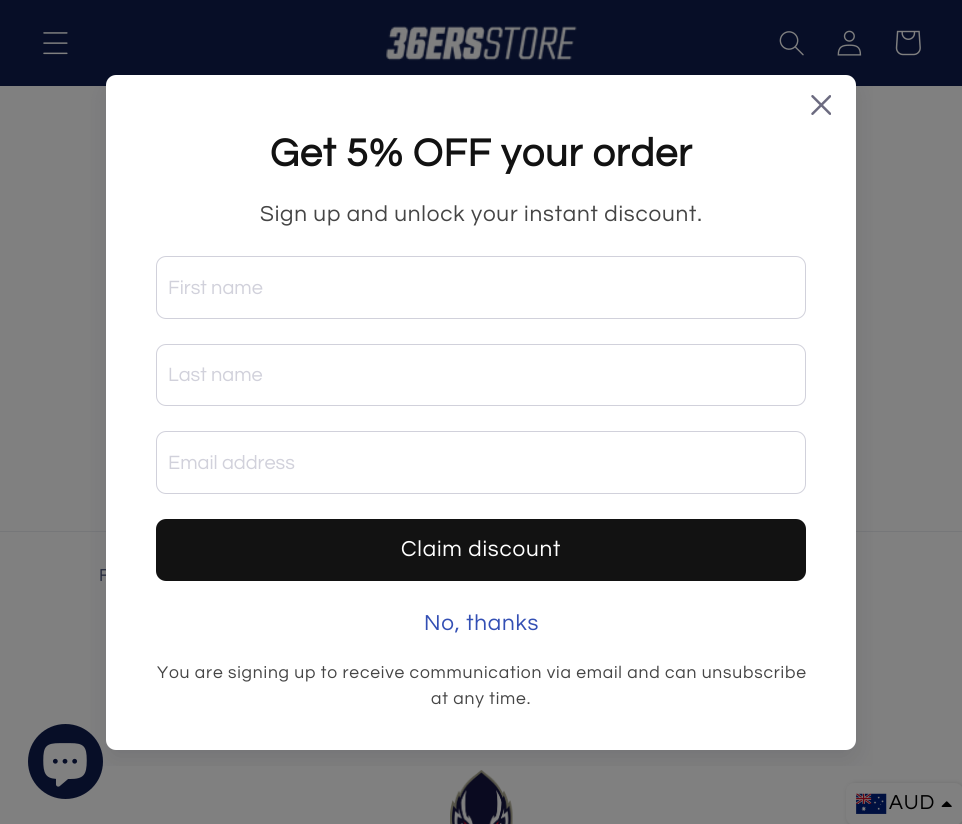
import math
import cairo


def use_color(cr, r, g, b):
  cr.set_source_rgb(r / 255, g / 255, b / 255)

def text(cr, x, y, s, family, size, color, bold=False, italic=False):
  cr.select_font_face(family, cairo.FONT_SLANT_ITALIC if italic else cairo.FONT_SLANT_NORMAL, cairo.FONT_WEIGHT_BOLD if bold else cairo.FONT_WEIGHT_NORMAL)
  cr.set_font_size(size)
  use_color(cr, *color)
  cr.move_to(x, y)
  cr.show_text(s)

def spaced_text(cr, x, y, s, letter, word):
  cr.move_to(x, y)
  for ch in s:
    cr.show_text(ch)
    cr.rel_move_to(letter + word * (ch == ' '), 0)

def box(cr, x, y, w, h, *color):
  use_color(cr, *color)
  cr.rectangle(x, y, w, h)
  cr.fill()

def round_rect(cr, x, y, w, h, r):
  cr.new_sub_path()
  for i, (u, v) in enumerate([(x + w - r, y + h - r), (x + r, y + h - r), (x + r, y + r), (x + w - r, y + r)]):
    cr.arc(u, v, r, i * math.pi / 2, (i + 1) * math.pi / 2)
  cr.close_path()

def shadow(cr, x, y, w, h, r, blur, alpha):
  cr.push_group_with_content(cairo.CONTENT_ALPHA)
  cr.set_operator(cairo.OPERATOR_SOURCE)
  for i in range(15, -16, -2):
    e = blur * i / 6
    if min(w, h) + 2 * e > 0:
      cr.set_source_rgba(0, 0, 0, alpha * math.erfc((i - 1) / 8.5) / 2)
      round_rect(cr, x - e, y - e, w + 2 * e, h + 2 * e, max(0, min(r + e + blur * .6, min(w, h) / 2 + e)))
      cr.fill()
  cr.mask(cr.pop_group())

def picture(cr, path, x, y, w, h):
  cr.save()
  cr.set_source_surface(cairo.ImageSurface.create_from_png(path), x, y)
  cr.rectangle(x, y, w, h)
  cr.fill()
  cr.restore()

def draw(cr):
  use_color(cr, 128, 128, 128)
  cr.paint()
  box(cr, 0, 0, 962, 86, 7, 14, 39)
  picture(cr, "img_01.png", 43, 32, 25, 23)
  picture(cr, "img_02.png", 386, 26, 191, 35)
  picture(cr, "img_03.png", 779, 31, 25, 25)
  picture(cr, "img_04.png", 837, 30, 25, 26)
  picture(cr, "img_05.png", 895, 30, 26, 26)
  box(cr, 0, 531, 962, 1, 118, 119, 121)
  picture(cr, "img_06.png", 450, 770, 63, 54)
  use_color(cr, 7, 14, 39)
  cr.arc(65.5, 761.5, 37.5, 0, 2 * math.pi)
  cr.fill()
  picture(cr, "img_08.png", 43, 743, 44, 44)
  use_color(cr, 0, 0, 0)
  shadow(cr, 848, 784, 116, 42, 8, 2.5, 0.2)
  use_color(cr, 128, 128, 128)
  round_rect(cr, 846, 783, 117, 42, 8)
  cr.fill()
  picture(cr, "img_09.png", 856, 793, 31, 21)
  cr.save()
  cr.rectangle(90, 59, 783, 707)
  cr.clip()
  use_color(cr, 18, 17, 39)
  shadow(cr, 106, 85, 750, 675, 10, 12.5, 0.1)
  cr.restore()
  picture(cr, "img_10.png", 941, 801, 11, 6)
  cr.select_font_face("Questrial")
  cr.set_font_size(18)
  use_color(cr, 37, 42, 61)
  spaced_text(cr, 99, 581, "F", 0.8, 0)
  use_color(cr, 255, 255, 255)
  round_rect(cr, 106, 75, 750, 675, 10)
  cr.fill()
  picture(cr, "img_07.png", 811, 95, 20, 20)
  cr.select_font_face("Questrial", cairo.FONT_SLANT_NORMAL, cairo.FONT_WEIGHT_BOLD)
  cr.set_font_size(40)
  use_color(cr, 18, 18, 18)
  spaced_text(cr, 270, 166, "Get 5% OFF your order", 0.8, 0)
  cr.select_font_face("Questrial")
  cr.set_font_size(22.5)
  use_color(cr, 69, 69, 69)
  spaced_text(cr, 260, 221, "Sign up and unlock your instant discount.", 0.8, 0)
  round_rect(cr, 156.5, 256.5, 649, 62, 9.5)
  use_color(cr, 209, 209, 219)
  cr.set_line_width(1)
  cr.stroke()
  text(cr, 168, 294, "First name", "Questrial", 20, (209, 209, 219))
  round_rect(cr, 156.5, 344.5, 649, 61, 9.5)
  cr.stroke()
  text(cr, 168, 381, "Last name", "Questrial", 20, (209, 209, 219))
  round_rect(cr, 156.5, 431.5, 649, 62, 9.5)
  cr.stroke()
  text(cr, 168, 469, "Email address", "Questrial", 20, (209, 209, 219))
  use_color(cr, 18, 18, 18)
  round_rect(cr, 156, 519, 650, 62, 10)
  cr.fill()
  cr.set_font_size(22.5)
  use_color(cr, 255, 255, 255)
  spaced_text(cr, 401, 556, "Claim discount", 0.8, 0)
  use_color(cr, 51, 79, 180)
  spaced_text(cr, 424, 630, "No, thanks", 0.8, 0)
  cr.set_font_size(17.5)
  use_color(cr, 69, 69, 69)
  spaced_text(cr, 157, 678, "You are signing up to receive communication via email and can unsubscribe", 0.8, 0)
  spaced_text(cr, 431, 704, "at any time.", 0.8, 0)
  cr.set_font_size(21)
  use_color(cr, 0, 0, 0)
  spaced_text(cr, 889, 809, "AUD", 0.8, 0)


surface = cairo.ImageSurface(cairo.FORMAT_RGB24, 962, 824)
cr = cairo.Context(surface)
options = cairo.FontOptions()
options.set_hint_metrics(cairo.HINT_METRICS_OFF)
options.set_hint_style(cairo.HINT_STYLE_NONE)
cr.set_font_options(options)
cr.set_miter_limit(4)
draw(cr)
surface.write_to_png("out.png")
